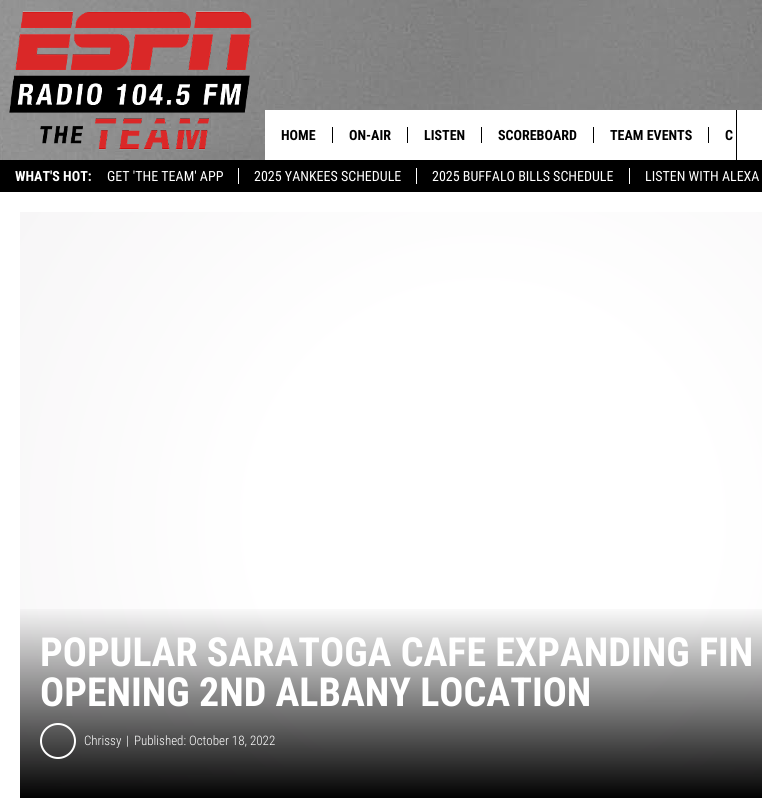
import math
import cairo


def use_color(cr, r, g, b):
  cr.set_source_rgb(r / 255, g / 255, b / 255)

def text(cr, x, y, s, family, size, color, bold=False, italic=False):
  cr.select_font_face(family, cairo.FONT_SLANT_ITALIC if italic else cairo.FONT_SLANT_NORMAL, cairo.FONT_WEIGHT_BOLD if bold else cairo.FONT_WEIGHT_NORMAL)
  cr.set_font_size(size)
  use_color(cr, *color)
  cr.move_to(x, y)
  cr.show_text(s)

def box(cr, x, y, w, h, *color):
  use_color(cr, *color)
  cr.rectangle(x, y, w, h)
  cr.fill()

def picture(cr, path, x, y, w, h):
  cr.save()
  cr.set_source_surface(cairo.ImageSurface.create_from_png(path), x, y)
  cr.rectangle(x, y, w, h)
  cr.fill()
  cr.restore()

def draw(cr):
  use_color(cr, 255, 255, 255)
  cr.paint()
  picture(cr, "img_01.png", 0, 0, 762, 160)
  picture(cr, "img_02.png", 9, 11, 243, 139)
  box(cr, 265, 110, 471, 50, 255, 255, 255)
  box(cr, 332, 127, 1, 16, 0, 0, 0)
  box(cr, 407, 127, 1, 16, 0, 0, 0)
  box(cr, 481, 127, 1, 16, 0, 0, 0)
  box(cr, 593, 127, 1, 16, 0, 0, 0)
  box(cr, 708, 127, 1, 16, 0, 0, 0)
  box(cr, 737, 110, 25, 50, 255, 255, 255)
  box(cr, 736, 110, 1, 50, 0, 0, 0)
  box(cr, 0, 160, 762, 32, 0, 0, 0)
  box(cr, 238, 168, 1, 16, 255, 255, 255)
  box(cr, 416, 168, 1, 16, 255, 255, 255)
  box(cr, 629, 168, 1, 16, 255, 255, 255)
  gradient = cairo.RadialGradient(483, 521, 0, 483, 521, 556)
  gradient.add_color_stop_rgba(0.4, 1, 1, 1, 1)
  gradient.add_color_stop_rgba(1, 0.969, 0.965, 0.969, 1)
  cr.set_source(gradient)
  cr.rectangle(20, 212, 742, 586)
  cr.fill()
  gradient = cairo.LinearGradient(483, 605, 483, 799)
  gradient.add_color_stop_rgba(0, 0, 0, 0, 0)
  gradient.add_color_stop_rgba(1, 0, 0, 0, 1)
  cr.set_source(gradient)
  cr.rectangle(20, 609, 742, 189)
  cr.fill()
  cr.arc(58, 741, 17, 0, 2 * math.pi)
  use_color(cr, 255, 255, 255)
  cr.stroke()
  text(cr, 281, 140, "HOME", "Roboto Condensed", 14, (0, 0, 0), bold=True)
  text(cr, 349, 140, "ON-AIR", "Roboto Condensed", 14, (0, 0, 0), bold=True)
  text(cr, 424, 140, "LISTEN", "Roboto Condensed", 14, (0, 0, 0), bold=True)
  text(cr, 498, 140, "SCOREBOARD", "Roboto Condensed", 14, (0, 0, 0), bold=True)
  text(cr, 610, 140, "TEAM EVENTS", "Roboto Condensed", 14, (0, 0, 0), bold=True)
  text(cr, 725, 140, "C", "Roboto Condensed", 14, (0, 0, 0), bold=True)
  text(cr, 15, 181, "WHAT'S HOT:", "Roboto Condensed", 14, (255, 255, 255), bold=True)
  text(cr, 107, 181, "GET 'THE TEAM' APP", "Roboto Condensed", 14, (255, 255, 255))
  text(cr, 254, 181, "2025 YANKEES SCHEDULE", "Roboto Condensed", 14, (255, 255, 255))
  text(cr, 432, 181, "2025 BUFFALO BILLS SCHEDULE", "Roboto Condensed", 14, (255, 255, 255))
  text(cr, 645, 181, "LISTEN WITH ALEXA", "Roboto Condensed", 14, (255, 255, 255))
  text(cr, 40, 666, "POPULAR SARATOGA CAFE EXPANDING FIN", "Roboto Condensed", 40, (255, 255, 255), bold=True)
  text(cr, 40, 706, "OPENING 2ND ALBANY LOCATION", "Roboto Condensed", 40, (255, 255, 255), bold=True)
  text(cr, 84, 745, "Chrissy", "Roboto Condensed Light", 13, (255, 255, 255))
  text(cr, 126, 745, "|", "Roboto Condensed Light", 13, (255, 255, 255))
  text(cr, 134, 745, "Published: October 18, 2022", "Roboto Condensed Light", 13, (255, 255, 255))


surface = cairo.ImageSurface(cairo.FORMAT_RGB24, 762, 798)
cr = cairo.Context(surface)
options = cairo.FontOptions()
options.set_hint_metrics(cairo.HINT_METRICS_OFF)
options.set_hint_style(cairo.HINT_STYLE_NONE)
cr.set_font_options(options)
cr.set_miter_limit(4)
draw(cr)
surface.write_to_png("out.png")
